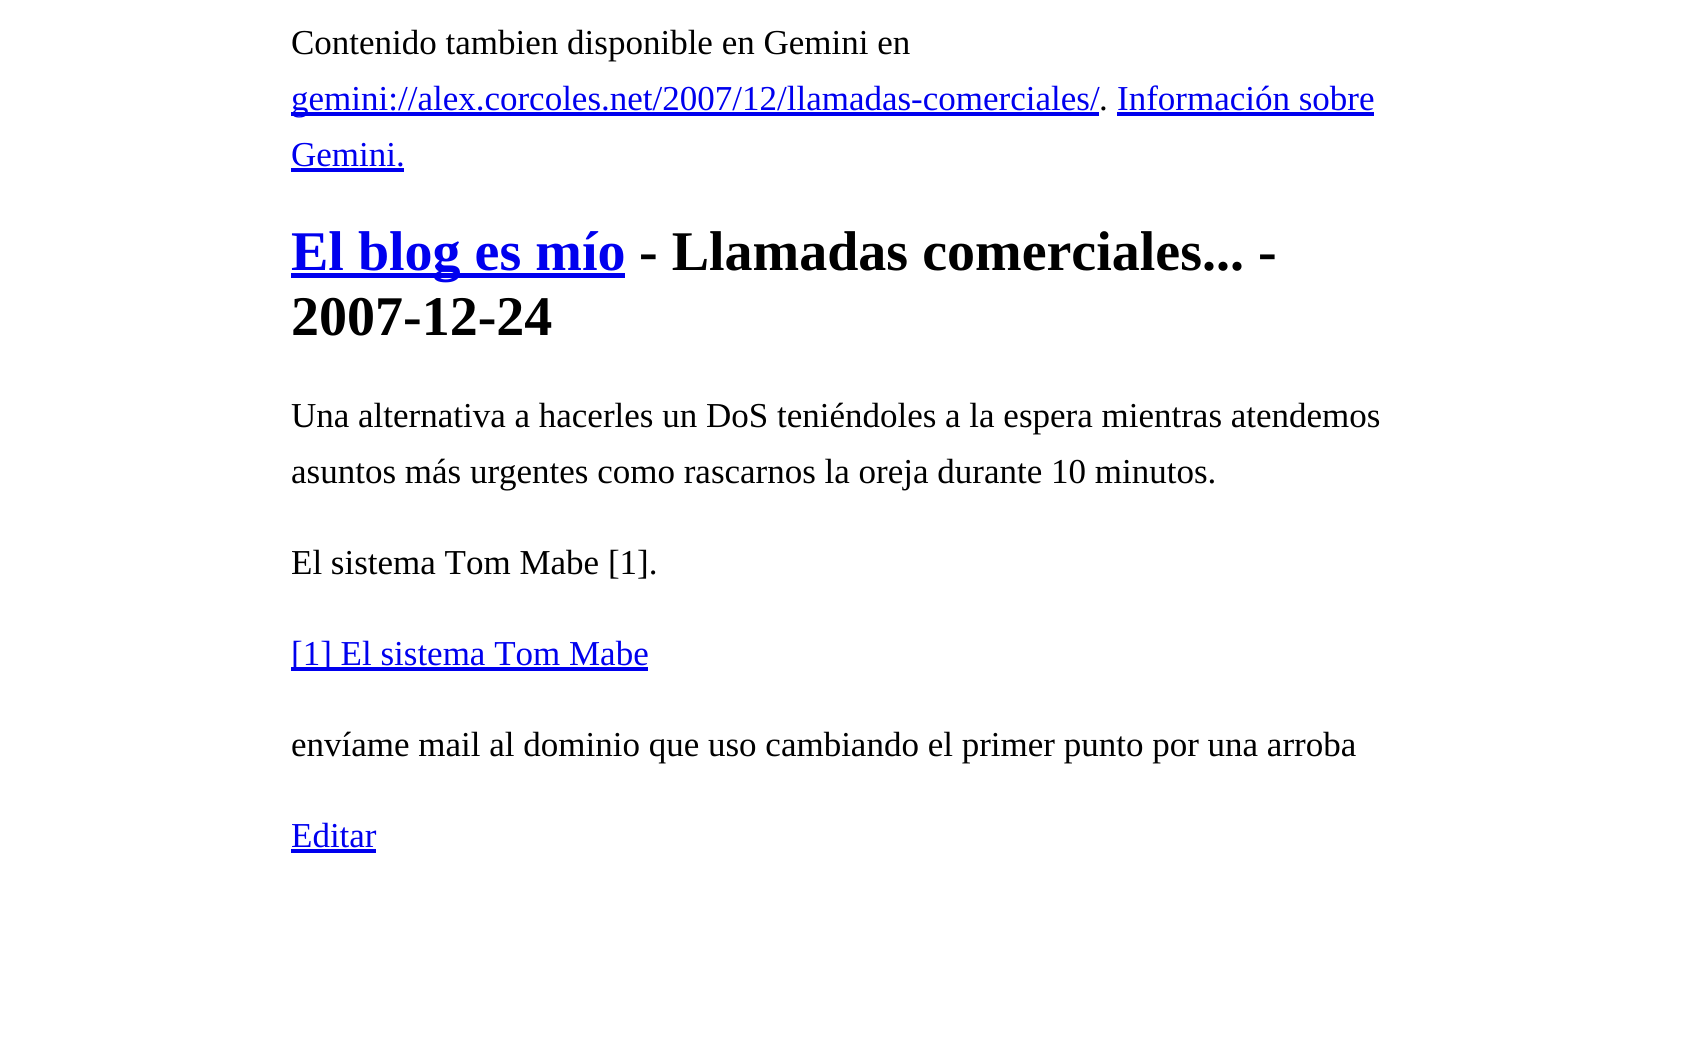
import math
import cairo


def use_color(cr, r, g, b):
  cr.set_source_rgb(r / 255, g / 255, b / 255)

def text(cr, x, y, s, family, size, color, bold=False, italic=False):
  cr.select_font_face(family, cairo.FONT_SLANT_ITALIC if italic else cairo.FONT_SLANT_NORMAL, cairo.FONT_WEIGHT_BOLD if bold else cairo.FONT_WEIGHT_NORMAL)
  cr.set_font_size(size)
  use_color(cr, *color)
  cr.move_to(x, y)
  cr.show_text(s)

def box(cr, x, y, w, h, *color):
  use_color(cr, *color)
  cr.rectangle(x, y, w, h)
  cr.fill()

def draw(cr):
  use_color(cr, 255, 255, 255)
  cr.paint()
  box(cr, 291, 112, 808, 4, 0, 0, 238)
  box(cr, 1117, 112, 257, 4, 0, 0, 238)
  box(cr, 291, 168, 113, 4, 0, 0, 238)
  box(cr, 291, 273, 334, 5, 0, 0, 238)
  box(cr, 291, 667, 357, 4, 0, 0, 238)
  box(cr, 291, 849, 85, 4, 0, 0, 238)
  text(cr, 291, 54, "Contenido tambien disponible en Gemini en", "Liberation Serif", 35, (0, 0, 0))
  text(cr, 291, 110, "gemini://alex.corcoles.net/2007/12/llamadas-comerciales/", "Liberation Serif", 35, (0, 0, 238))
  text(cr, 1099, 110, ".", "Liberation Serif", 35, (0, 0, 0))
  text(cr, 1117, 110, "Información sobre", "Liberation Serif", 35, (0, 0, 238))
  text(cr, 291, 166, "Gemini.", "Liberation Serif", 35, (0, 0, 238))
  text(cr, 291, 270, "El blog es mío", "Liberation Serif", 56, (0, 0, 238), bold=True)
  text(cr, 639, 270, "- Llamadas comerciales... -", "Liberation Serif", 56, (0, 0, 0), bold=True)
  text(cr, 291, 335, "2007-12-24", "Liberation Serif", 56, (0, 0, 0), bold=True)
  text(cr, 291, 427, "Una alternativa a hacerles un DoS teniéndoles a la espera mientras atendemos", "Liberation Serif", 35, (0, 0, 0))
  text(cr, 291, 483, "asuntos más urgentes como rascarnos la oreja durante 10 minutos.", "Liberation Serif", 35, (0, 0, 0))
  text(cr, 291, 574, "El sistema Tom Mabe [1].", "Liberation Serif", 35, (0, 0, 0))
  text(cr, 291, 665, "[1] El sistema Tom Mabe", "Liberation Serif", 35, (0, 0, 238))
  text(cr, 291, 756, "envíame mail al dominio que uso cambiando el primer punto por una arroba", "Liberation Serif", 35, (0, 0, 0))
  text(cr, 291, 847, "Editar", "Liberation Serif", 35, (0, 0, 238))


surface = cairo.ImageSurface(cairo.FORMAT_RGB24, 1700, 1048)
cr = cairo.Context(surface)
options = cairo.FontOptions()
options.set_hint_metrics(cairo.HINT_METRICS_OFF)
options.set_hint_style(cairo.HINT_STYLE_NONE)
cr.set_font_options(options)
cr.set_miter_limit(4)
draw(cr)
surface.write_to_png("out.png")
